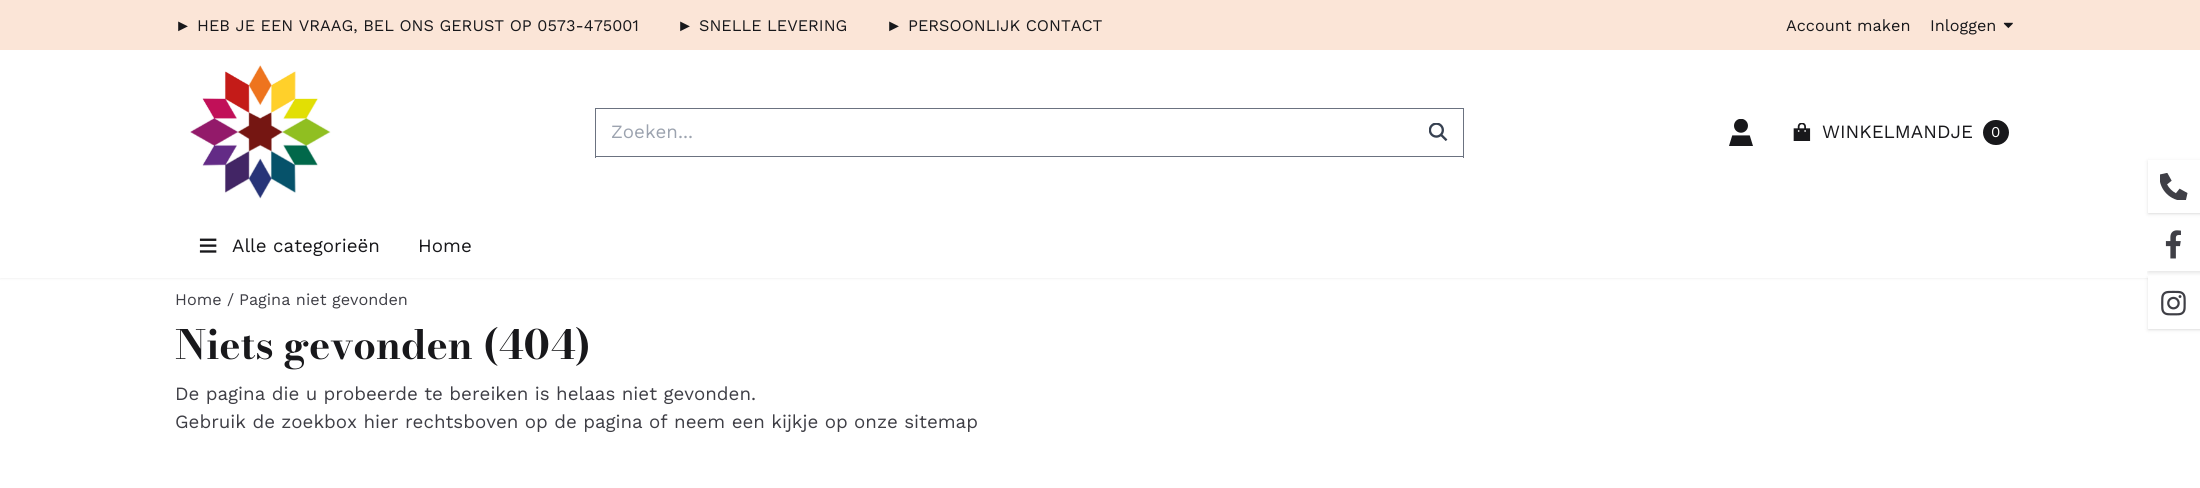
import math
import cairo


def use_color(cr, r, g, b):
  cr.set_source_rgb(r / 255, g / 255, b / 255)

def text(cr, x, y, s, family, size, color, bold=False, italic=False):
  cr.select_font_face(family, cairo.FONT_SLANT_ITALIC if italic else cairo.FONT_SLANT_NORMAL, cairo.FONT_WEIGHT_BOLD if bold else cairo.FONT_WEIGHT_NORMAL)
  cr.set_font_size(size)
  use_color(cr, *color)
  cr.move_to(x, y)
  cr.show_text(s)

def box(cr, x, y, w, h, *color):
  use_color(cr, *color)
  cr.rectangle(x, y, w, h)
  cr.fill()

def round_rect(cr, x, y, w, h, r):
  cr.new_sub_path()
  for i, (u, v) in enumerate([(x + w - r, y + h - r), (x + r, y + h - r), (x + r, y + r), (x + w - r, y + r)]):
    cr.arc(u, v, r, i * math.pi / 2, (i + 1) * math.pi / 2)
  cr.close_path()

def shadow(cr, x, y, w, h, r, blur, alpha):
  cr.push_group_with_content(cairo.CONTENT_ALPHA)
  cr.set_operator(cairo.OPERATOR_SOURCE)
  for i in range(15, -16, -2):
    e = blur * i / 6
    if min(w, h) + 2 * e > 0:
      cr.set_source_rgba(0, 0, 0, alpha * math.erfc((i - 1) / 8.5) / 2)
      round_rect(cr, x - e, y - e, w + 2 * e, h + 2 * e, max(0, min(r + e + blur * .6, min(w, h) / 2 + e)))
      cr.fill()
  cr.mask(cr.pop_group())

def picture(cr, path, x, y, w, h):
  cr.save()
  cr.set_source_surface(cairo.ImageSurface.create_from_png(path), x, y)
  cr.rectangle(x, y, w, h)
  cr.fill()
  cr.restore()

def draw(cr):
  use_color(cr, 255, 255, 255)
  cr.paint()
  box(cr, 0, 0, 2200, 50, 251, 229, 215)
  picture(cr, "img_01.png", 2003, 22, 10, 7)
  picture(cr, "img_02.png", 190, 65, 141, 134)
  box(cr, 595, 108, 869, 1, 107, 114, 128)
  box(cr, 595, 156, 820, 1, 107, 114, 128)
  box(cr, 595, 108, 1, 50, 107, 114, 128)
  box(cr, 1414, 156, 1, 1, 255, 255, 255)
  box(cr, 1463, 108, 1, 50, 107, 114, 128)
  box(cr, 1414, 156, 50, 1, 107, 114, 128)
  picture(cr, "img_03.png", 1429, 123, 19, 18)
  picture(cr, "img_04.png", 1729, 119, 24, 27)
  picture(cr, "img_05.png", 1793, 123, 18, 18)
  use_color(cr, 24, 24, 27)
  round_rect(cr, 1983, 120, 26, 25, 12.5)
  cr.fill()
  use_color(cr, 0, 0, 0)
  shadow(cr, 0, 216, 2200, 63, 0, 1, 0.05)
  box(cr, 0, 215, 2200, 63, 255, 255, 255)
  picture(cr, "img_06.png", 199, 238, 18, 15)
  use_color(cr, 0, 0, 0)
  shadow(cr, 2149, 163, 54, 50, 0, 1, 0.1)
  shadow(cr, 2148, 161, 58, 53, 0, 2, 0.1)
  box(cr, 2148, 160, 52, 53, 255, 255, 255)
  picture(cr, "img_07.png", 2160, 173, 28, 27)
  cr.save()
  cr.rectangle(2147, 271, 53, 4)
  cr.clip()
  use_color(cr, 0, 0, 0)
  shadow(cr, 2148, 219, 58, 54, 0, 2, 0.1)
  cr.restore()
  picture(cr, "img_08.png", 2165, 230, 16, 29)
  use_color(cr, 0, 0, 0)
  shadow(cr, 2149, 279, 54, 50, 0, 1, 0.1)
  shadow(cr, 2148, 278, 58, 52, 0, 2, 0.1)
  box(cr, 2148, 276, 52, 53, 255, 255, 255)
  picture(cr, "img_09.png", 2161, 290, 25, 26)
  text(cr, 175, 31, "►", "Liberation Sans", 16.25, (24, 24, 27))
  text(cr, 197, 31, "HEB JE EEN VRAAG, BEL ONS GERUST OP 0573-475001", "Work Sans", 16.25, (24, 24, 27))
  text(cr, 677, 31, "►", "Liberation Sans", 16.25, (24, 24, 27))
  text(cr, 699, 31, "SNELLE LEVERING", "Work Sans", 16.25, (24, 24, 27))
  text(cr, 886, 31, "►", "Liberation Sans", 16.25, (24, 24, 27))
  text(cr, 908, 31, "PERSOONLIJK CONTACT", "Work Sans", 16.25, (24, 24, 27))
  text(cr, 1786, 31, "Account maken", "Work Sans", 16.25, (24, 24, 27))
  text(cr, 1930, 31, "Inloggen", "Work Sans", 16.25, (24, 24, 27))
  text(cr, 611, 138, "Zoeken...", "Work Sans", 18.75, (156, 163, 175))
  text(cr, 1822, 138, "WINKELMANDJE", "Work Sans", 18.75, (24, 24, 27))
  text(cr, 1991, 137, "0", "Work Sans", 15, (255, 255, 255))
  text(cr, 232, 252, "Alle categorieën", "Work Sans", 18.75, (24, 24, 27))
  text(cr, 418, 252, "Home", "Work Sans", 18.75, (24, 24, 27))
  text(cr, 175, 305, "Home", "Work Sans", 16.25, (63, 63, 70))
  text(cr, 227, 305, "/", "Work Sans", 16.25, (63, 63, 70))
  text(cr, 239, 305, "Pagina niet gevonden", "Work Sans", 16.25, (63, 63, 70))
  text(cr, 175, 359, "Niets gevonden (404)", "Bodoni Moda", 40, (24, 24, 27), bold=True)
  text(cr, 175, 400, "De pagina die u probeerde te bereiken is helaas niet gevonden.", "Work Sans", 18.75, (63, 63, 70))
  text(cr, 175, 428, "Gebruik de zoekbox hier rechtsboven op de pagina of neem een kijkje op onze sitemap", "Work Sans", 18.75, (63, 63, 70))


surface = cairo.ImageSurface(cairo.FORMAT_RGB24, 2200, 488)
cr = cairo.Context(surface)
options = cairo.FontOptions()
options.set_hint_metrics(cairo.HINT_METRICS_OFF)
options.set_hint_style(cairo.HINT_STYLE_NONE)
cr.set_font_options(options)
cr.set_miter_limit(4)
draw(cr)
surface.write_to_png("out.png")
